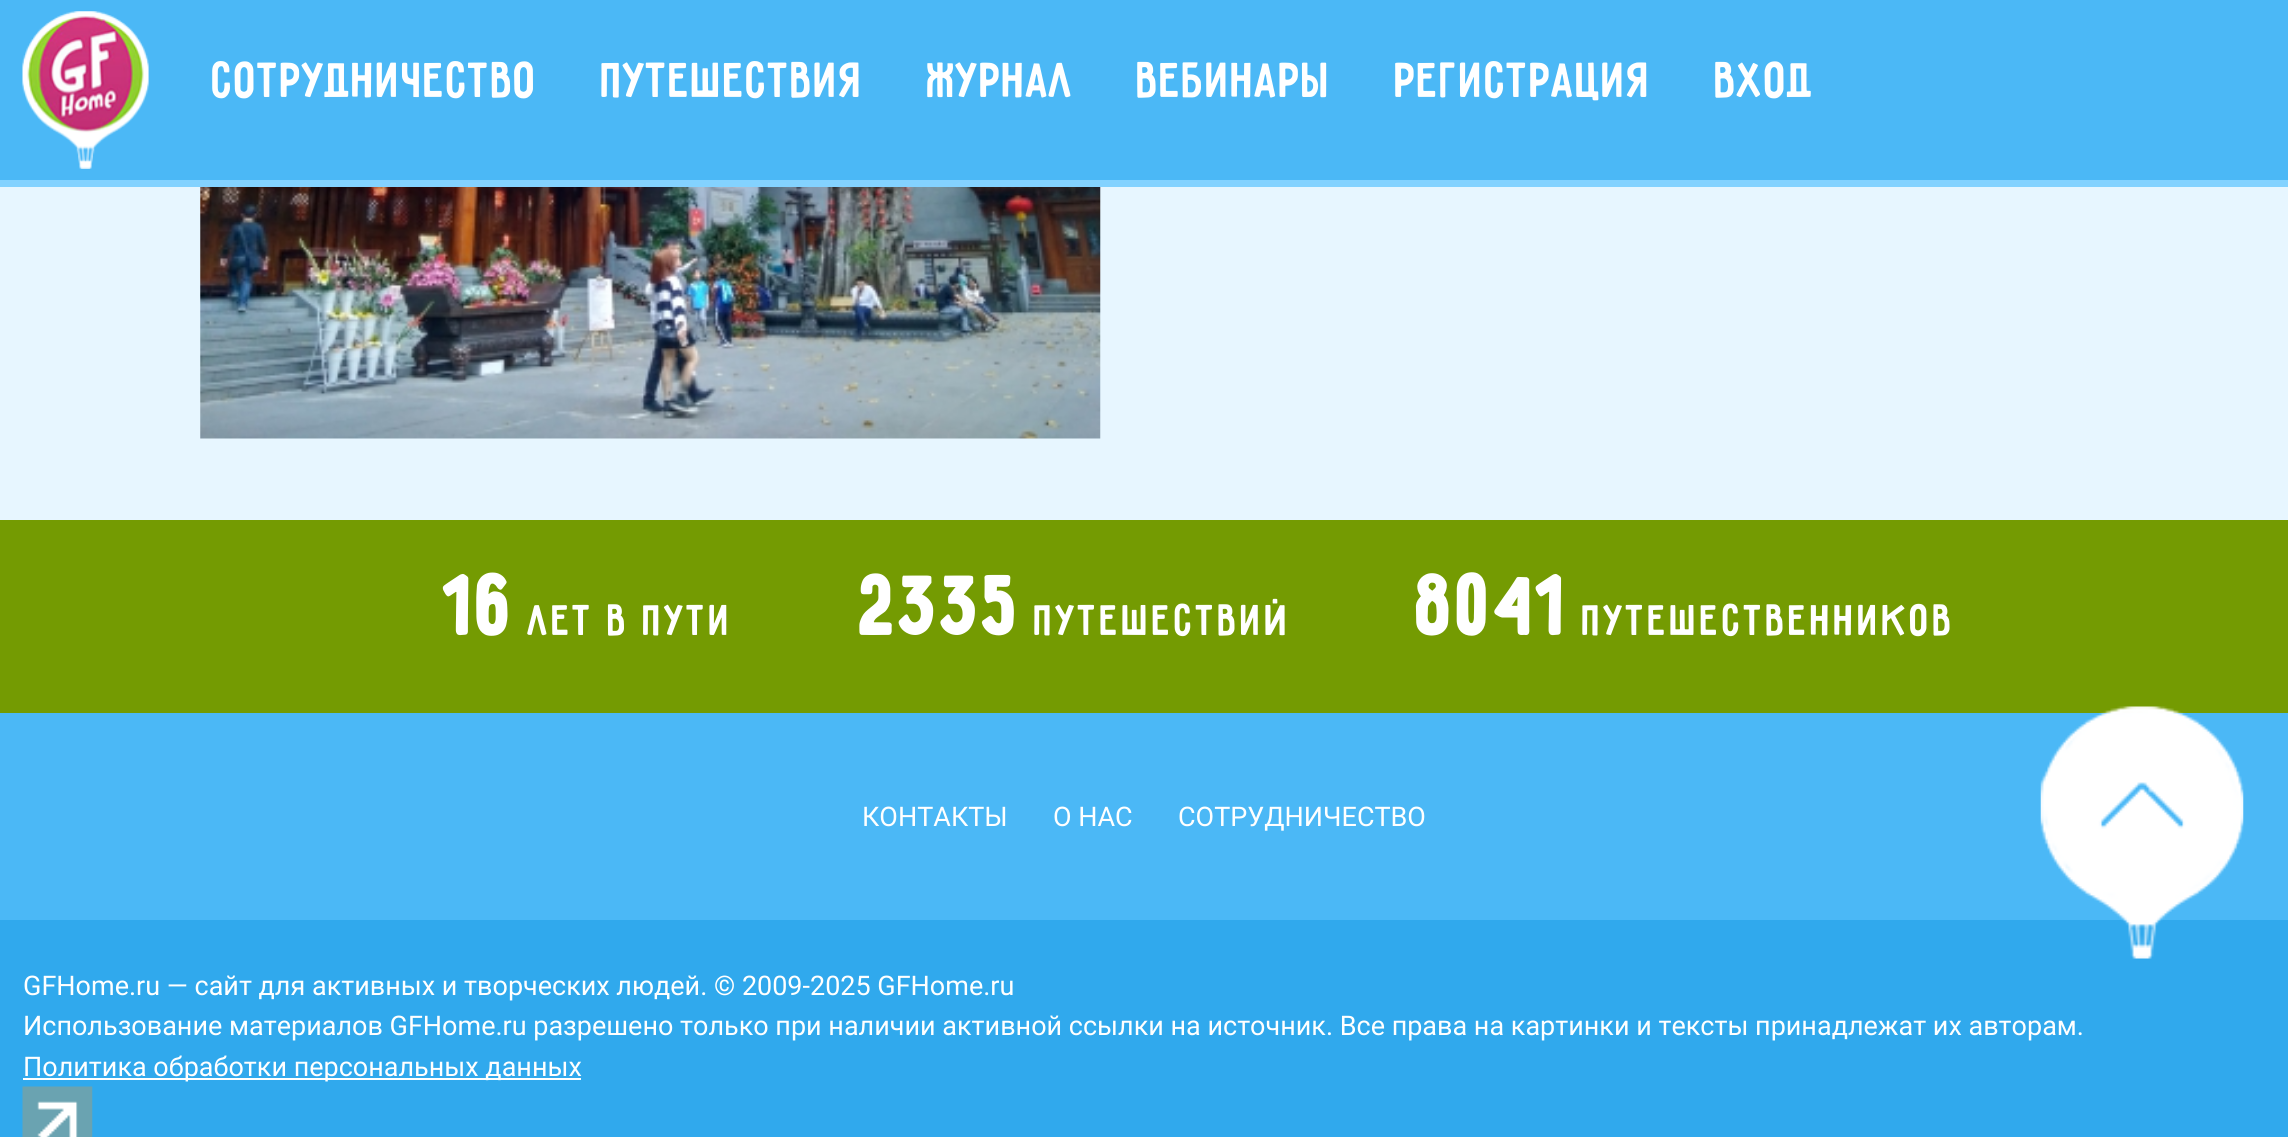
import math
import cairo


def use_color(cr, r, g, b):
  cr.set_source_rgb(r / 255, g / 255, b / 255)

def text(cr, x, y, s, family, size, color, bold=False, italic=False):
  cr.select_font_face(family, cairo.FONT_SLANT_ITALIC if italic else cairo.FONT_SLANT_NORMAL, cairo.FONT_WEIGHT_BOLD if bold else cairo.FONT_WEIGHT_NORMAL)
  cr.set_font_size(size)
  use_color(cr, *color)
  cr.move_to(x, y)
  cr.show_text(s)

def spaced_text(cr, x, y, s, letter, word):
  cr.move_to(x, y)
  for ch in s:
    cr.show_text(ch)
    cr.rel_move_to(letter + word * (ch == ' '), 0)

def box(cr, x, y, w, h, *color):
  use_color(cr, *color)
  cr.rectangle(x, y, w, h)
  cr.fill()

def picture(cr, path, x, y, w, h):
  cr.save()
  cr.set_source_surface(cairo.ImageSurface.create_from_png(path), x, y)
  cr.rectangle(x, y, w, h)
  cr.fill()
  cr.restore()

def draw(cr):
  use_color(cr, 231, 246, 255)
  cr.paint()
  box(cr, 0, 0, 2288, 180, 75, 184, 246)
  box(cr, 0, 180, 2288, 7, 131, 210, 255)
  picture(cr, "img_01.png", 22, 11, 127, 158)
  picture(cr, "img_02.png", 200, 187, 901, 252)
  box(cr, 0, 520, 2288, 193, 116, 155, 2)
  box(cr, 0, 920, 2288, 217, 48, 169, 237)
  box(cr, 0, 713, 2288, 207, 75, 184, 246)
  box(cr, 23, 1078, 558, 2, 255, 255, 255)
  picture(cr, "img_03.png", 22, 1086, 71, 51)
  picture(cr, "img_04.png", 2040, 706, 204, 253)
  text(cr, 212, 97, "СОТРУДНИЧЕСТВО", "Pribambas", 54, (255, 255, 255))
  text(cr, 601, 97, "ПУТЕШЕСТВИЯ", "Pribambas", 54, (255, 255, 255))
  text(cr, 927, 97, "ЖУРНАЛ", "Pribambas", 54, (255, 255, 255))
  text(cr, 1137, 97, "ВЕБИНАРЫ", "Pribambas", 54, (255, 255, 255))
  text(cr, 1395, 97, "РЕГИСТРАЦИЯ", "Pribambas", 54, (255, 255, 255))
  text(cr, 1715, 97, "ВХОД", "Pribambas", 54, (255, 255, 255))
  cr.select_font_face("Pribambas", cairo.FONT_SLANT_NORMAL, cairo.FONT_WEIGHT_BOLD)
  cr.set_font_size(92)
  spaced_text(cr, 445, 635, "16", 2.25, 0)
  cr.select_font_face("Pribambas")
  cr.set_font_size(47.25)
  spaced_text(cr, 529, 635, "лет в пути", 2.25, 0)
  cr.select_font_face("Pribambas", cairo.FONT_SLANT_NORMAL, cairo.FONT_WEIGHT_BOLD)
  cr.set_font_size(92)
  spaced_text(cr, 859, 635, "2335", 2.25, 0)
  cr.select_font_face("Pribambas")
  cr.set_font_size(47.25)
  spaced_text(cr, 1034, 635, "путешествий", 2.25, 0)
  cr.select_font_face("Pribambas", cairo.FONT_SLANT_NORMAL, cairo.FONT_WEIGHT_BOLD)
  cr.set_font_size(92)
  spaced_text(cr, 1416, 635, "8041", 2.25, 0)
  cr.select_font_face("Pribambas")
  cr.set_font_size(47.25)
  spaced_text(cr, 1582, 635, "путешественников", 2.25, 0)
  text(cr, 862, 826, "КОНТАКТЫ", "Roboto", 27, (255, 255, 255))
  text(cr, 1053, 826, "О НАС", "Roboto", 27, (255, 255, 255))
  text(cr, 1178, 826, "СОТРУДНИЧЕСТВО", "Roboto", 27, (255, 255, 255))
  text(cr, 23, 995, "GFHome.ru — сайт для активных и творческих людей. © 2009-2025 GFHome.ru", "Roboto", 27, (255, 255, 255))
  text(cr, 23, 1035, "Использование материалов GFHome.ru разрешено только при наличии активной ссылки на источник. Все права на картинки и тексты принадлежат их авторам.", "Roboto", 27, (255, 255, 255))
  text(cr, 23, 1076, "Политика обработки персональных данных", "Roboto", 27, (255, 255, 255))


surface = cairo.ImageSurface(cairo.FORMAT_RGB24, 2288, 1137)
cr = cairo.Context(surface)
options = cairo.FontOptions()
options.set_hint_metrics(cairo.HINT_METRICS_OFF)
options.set_hint_style(cairo.HINT_STYLE_NONE)
cr.set_font_options(options)
cr.set_miter_limit(4)
draw(cr)
surface.write_to_png("out.png")
